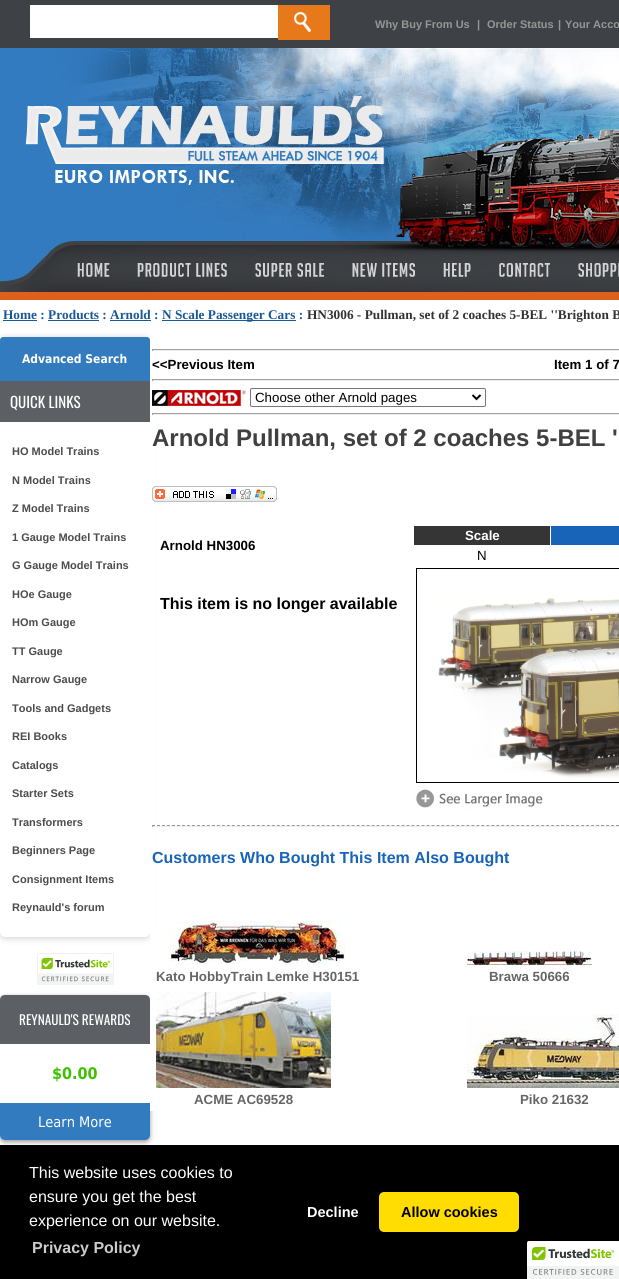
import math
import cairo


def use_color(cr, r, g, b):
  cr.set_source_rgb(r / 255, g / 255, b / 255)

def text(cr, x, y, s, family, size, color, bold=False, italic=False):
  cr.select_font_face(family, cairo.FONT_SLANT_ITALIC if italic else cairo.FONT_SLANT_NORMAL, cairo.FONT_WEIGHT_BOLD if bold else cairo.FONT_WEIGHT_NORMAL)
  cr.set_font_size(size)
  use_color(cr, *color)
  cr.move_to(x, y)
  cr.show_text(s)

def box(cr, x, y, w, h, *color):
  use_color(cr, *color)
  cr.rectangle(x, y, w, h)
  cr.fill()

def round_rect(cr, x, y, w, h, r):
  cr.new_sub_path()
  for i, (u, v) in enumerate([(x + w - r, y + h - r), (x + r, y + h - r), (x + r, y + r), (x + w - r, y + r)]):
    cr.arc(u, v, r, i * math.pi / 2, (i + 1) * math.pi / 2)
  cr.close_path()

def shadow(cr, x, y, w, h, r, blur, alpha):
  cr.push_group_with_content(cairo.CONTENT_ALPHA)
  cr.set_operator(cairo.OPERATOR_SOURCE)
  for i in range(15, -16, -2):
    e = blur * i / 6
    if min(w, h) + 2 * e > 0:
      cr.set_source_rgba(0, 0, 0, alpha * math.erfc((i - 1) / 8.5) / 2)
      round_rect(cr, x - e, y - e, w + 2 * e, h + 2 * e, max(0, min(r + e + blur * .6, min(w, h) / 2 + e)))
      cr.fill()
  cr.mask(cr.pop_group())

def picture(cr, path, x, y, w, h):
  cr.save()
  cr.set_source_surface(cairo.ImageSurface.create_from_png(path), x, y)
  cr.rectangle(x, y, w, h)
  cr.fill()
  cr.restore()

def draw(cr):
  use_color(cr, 255, 255, 255)
  cr.paint()
  box(cr, 0, 0, 619, 48, 62, 65, 69)
  box(cr, 30, 5, 248, 33, 255, 255, 255)
  picture(cr, "img_01.png", 278, 5, 52, 35)
  box(cr, 0, 48, 3, 233, 50, 123, 191)
  picture(cr, "img_02.png", 0, 281, 3, 19)
  box(cr, 3, 292, 616, 8, 221, 97, 27)
  picture(cr, "img_03.png", 3, 48, 616, 200)
  picture(cr, "img_04.png", 3, 248, 121, 44)
  picture(cr, "img_05.png", 124, 248, 119, 44)
  picture(cr, "img_06.png", 243, 248, 93, 44)
  picture(cr, "img_07.png", 336, 248, 96, 44)
  picture(cr, "img_08.png", 432, 248, 55, 44)
  picture(cr, "img_09.png", 487, 248, 77, 44)
  picture(cr, "img_10.png", 564, 248, 55, 44)
  box(cr, 3, 320, 34, 1, 24, 88, 152)
  box(cr, 48, 320, 51, 1, 24, 88, 152)
  box(cr, 110, 320, 41, 1, 24, 88, 152)
  box(cr, 162, 320, 134, 1, 24, 88, 152)
  use_color(cr, 0, 0, 0)
  shadow(cr, 0, 338, 150, 600, 5, 3.5, 0.2)
  use_color(cr, 255, 255, 255)
  round_rect(cr, 0, 337, 150, 600, 5)
  cr.fill()
  use_color(cr, 50, 123, 191)
  cr.new_path()
  cr.move_to(3, 337)
  cr.line_to(147, 337)
  cr.curve_to(148.5, 337, 150, 338.5, 150, 340)
  cr.line_to(150, 381)
  cr.line_to(0, 381)
  cr.line_to(0, 340)
  cr.curve_to(0, 338.5, 1.5, 337, 3, 337)
  cr.close_path()
  cr.fill()
  box(cr, 0, 381, 150, 41, 92, 95, 100)
  picture(cr, "img_11.png", 37, 953, 77, 32)
  use_color(cr, 0, 0, 0)
  shadow(cr, 0, 997, 150, 145, 5, 2.5, 0.4)
  use_color(cr, 255, 255, 255)
  round_rect(cr, 0, 995, 150, 145, 5)
  cr.fill()
  use_color(cr, 92, 95, 100)
  cr.new_path()
  cr.move_to(5, 995)
  cr.line_to(145, 995)
  cr.curve_to(148, 995, 150, 997, 150, 1000)
  cr.line_to(150, 1044)
  cr.line_to(0, 1044)
  cr.line_to(0, 1000)
  cr.curve_to(0, 997, 2, 995, 5, 995)
  cr.close_path()
  cr.fill()
  use_color(cr, 50, 123, 191)
  cr.new_path()
  cr.move_to(0, 1103)
  cr.line_to(150, 1103)
  cr.line_to(150, 1135)
  cr.curve_to(150, 1138, 148, 1140, 145, 1140)
  cr.line_to(5, 1140)
  cr.curve_to(2, 1140, 0, 1138, 0, 1135)
  cr.close_path()
  cr.fill()
  box(cr, 150, 337, 6, 774, 255, 255, 255)
  box(cr, 152, 349, 467, 1, 159, 159, 159)
  box(cr, 152, 350, 467, 1, 238, 238, 238)
  box(cr, 152, 349, 1, 2, 159, 159, 159)
  box(cr, 152, 379, 467, 1, 159, 159, 159)
  box(cr, 152, 380, 467, 1, 238, 238, 238)
  box(cr, 152, 379, 1, 2, 159, 159, 159)
  picture(cr, "img_12.png", 152, 390, 94, 16)
  round_rect(cr, 250.5, 388.5, 235, 18, 1.5)
  use_color(cr, 118, 118, 118)
  cr.set_line_width(1)
  cr.stroke()
  cr.new_path()
  cr.move_to(472.5, 395)
  cr.line_to(476.5, 399)
  cr.line_to(480.5, 395)
  use_color(cr, 0, 0, 0)
  cr.set_line_width(2)
  cr.stroke()
  box(cr, 152, 413, 467, 1, 159, 159, 159)
  box(cr, 152, 414, 467, 1, 238, 238, 238)
  box(cr, 152, 413, 1, 2, 159, 159, 159)
  picture(cr, "img_13.png", 152, 486, 125, 16)
  box(cr, 414, 526, 136, 19, 53, 53, 53)
  box(cr, 551, 526, 68, 19, 23, 100, 184)
  cr.rectangle(416.5, 568.5, 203, 214)
  use_color(cr, 0, 0, 0)
  cr.set_line_width(1)
  cr.stroke()
  picture(cr, "img_14.png", 438, 593, 181, 185)
  picture(cr, "img_15.png", 414, 789, 129, 21)
  cr.new_path()
  cr.move_to(152, 825.5)
  cr.line_to(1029, 825.5)
  use_color(cr, 153, 153, 153)
  cr.set_dash([3, 1.99])
  cr.stroke()
  box(cr, 152, 826, 467, 1, 238, 238, 238)
  box(cr, 152, 825, 1, 2, 159, 159, 159)
  picture(cr, "img_16.png", 170, 921, 175, 44)
  picture(cr, "img_17.png", 467, 951, 125, 14)
  picture(cr, "img_18.png", 156, 992, 175, 96)
  picture(cr, "img_19.png", 467, 1014, 152, 74)
  box(cr, 0, 1145, 619, 134, 0, 0, 0)
  use_color(cr, 255, 221, 0)
  round_rect(cr, 379, 1192, 140, 40, 5)
  cr.fill()
  use_color(cr, 255, 255, 255)
  cr.new_path()
  cr.move_to(529, 1241)
  cr.line_to(619, 1241)
  cr.line_to(619, 1279)
  cr.line_to(527, 1279)
  cr.line_to(527, 1243)
  cr.curve_to(527, 1242, 528, 1241, 529, 1241)
  cr.close_path()
  cr.fill()
  picture(cr, "img_20.png", 527, 1241, 92, 38)
  text(cr, 375, 28, "Why Buy From Us", "Liberation Sans", 11, (150, 150, 150), bold=True)
  text(cr, 477, 28, "|", "Liberation Sans", 11, (150, 150, 150), bold=True)
  text(cr, 487, 28, "Order Status", "Liberation Sans", 11, (150, 150, 150), bold=True)
  text(cr, 558, 28, "|", "Liberation Sans", 11, (150, 150, 150), bold=True)
  text(cr, 565, 28, "Your Acco", "Liberation Sans", 11, (150, 150, 150), bold=True)
  text(cr, 3, 319, "Home : Products : Arnold :", "Liberation Serif", 13.3, (24, 88, 152), bold=True)
  text(cr, 162, 319, "N Scale Passenger Cars :", "Liberation Serif", 13.3, (24, 88, 152), bold=True)
  text(cr, 307, 319, "HN3006 - Pullman, set of 2 coaches 5-BEL ''Brighton B", "Liberation Serif", 13.3, (51, 51, 51), bold=True)
  text(cr, 22, 363, "Advanced Search", "DejaVu Sans", 12, (255, 255, 255), bold=True)
  text(cr, 10, 408, "QUICK LINKS", "Oswald", 15, (255, 255, 255))
  text(cr, 12, 455, "HO Model Trains", "Liberation Sans", 11, (76, 76, 76), bold=True)
  text(cr, 12, 484, "N Model Trains", "Liberation Sans", 11, (76, 76, 76), bold=True)
  text(cr, 12, 512, "Z Model Trains", "Liberation Sans", 11, (76, 76, 76), bold=True)
  text(cr, 12, 541, "1 Gauge Model Trains", "Liberation Sans", 11, (76, 76, 76), bold=True)
  text(cr, 12, 569, "G Gauge Model Trains", "Liberation Sans", 11, (76, 76, 76), bold=True)
  text(cr, 12, 598, "HOe Gauge", "Liberation Sans", 11, (76, 76, 76), bold=True)
  text(cr, 12, 626, "HOm Gauge", "Liberation Sans", 11, (76, 76, 76), bold=True)
  text(cr, 12, 655, "TT Gauge", "Liberation Sans", 11, (76, 76, 76), bold=True)
  text(cr, 12, 683, "Narrow Gauge", "Liberation Sans", 11, (76, 76, 76), bold=True)
  text(cr, 12, 712, "Tools and Gadgets", "Liberation Sans", 11, (76, 76, 76), bold=True)
  text(cr, 12, 740, "REI Books", "Liberation Sans", 11, (76, 76, 76), bold=True)
  text(cr, 12, 769, "Catalogs", "Liberation Sans", 11, (76, 76, 76), bold=True)
  text(cr, 12, 797, "Starter Sets", "Liberation Sans", 11, (76, 76, 76), bold=True)
  text(cr, 12, 826, "Transformers", "Liberation Sans", 11, (76, 76, 76), bold=True)
  text(cr, 12, 854, "Beginners Page", "Liberation Sans", 11, (76, 76, 76), bold=True)
  text(cr, 12, 883, "Consignment Items", "Liberation Sans", 11, (76, 76, 76), bold=True)
  text(cr, 12, 911, "Reynauld's forum", "Liberation Sans", 11, (76, 76, 76), bold=True)
  text(cr, 19, 1025, "REYNAULD'S REWARDS", "Oswald", 13.3, (255, 255, 255))
  text(cr, 52, 1079, "$0.00", "DejaVu Sans", 16, (62, 193, 0), bold=True)
  text(cr, 38, 1127, "Learn More", "DejaVu Sans", 14.5, (255, 255, 255))
  text(cr, 152, 369, "<<Previous Item", "Liberation Sans", 13.3, (0, 0, 0), bold=True)
  text(cr, 554, 369, "Item 1 of 7", "Liberation Sans", 13.3, (0, 0, 0), bold=True)
  text(cr, 255, 402, "Choose other Arnold pages", "Liberation Sans", 13.3, (0, 0, 0))
  text(cr, 152, 446, "Arnold Pullman, set of 2 coaches 5-BEL '", "Liberation Sans", 24, (64, 64, 65), bold=True)
  text(cr, 160, 550, "Arnold HN3006", "Liberation Sans", 13.3, (0, 0, 0), bold=True)
  text(cr, 160, 609, "This item is no longer available", "Liberation Sans", 16, (0, 0, 0), bold=True)
  text(cr, 465, 540, "Scale", "Liberation Sans", 13.3, (255, 255, 255), bold=True)
  text(cr, 477, 560, "N", "Liberation Sans", 13.3, (0, 0, 0))
  text(cr, 152, 863, "Customers Who Bought This Item Also Bought", "Liberation Sans", 16, (23, 100, 184), bold=True)
  text(cr, 156, 981, "Kato HobbyTrain Lemke H30151", "Liberation Sans", 13.3, (102, 102, 102), bold=True)
  text(cr, 489, 981, "Brawa 50666", "Liberation Sans", 13.3, (102, 102, 102), bold=True)
  text(cr, 194, 1104, "ACME AC69528", "Liberation Sans", 13.3, (102, 102, 102), bold=True)
  text(cr, 520, 1104, "Piko 21632", "Liberation Sans", 13.3, (102, 102, 102), bold=True)
  text(cr, 29, 1178, "This website uses cookies to", "Liberation Sans", 16, (255, 255, 255))
  text(cr, 29, 1202, "ensure you get the best", "Liberation Sans", 16, (255, 255, 255))
  text(cr, 29, 1226, "experience on our website.", "Liberation Sans", 16, (255, 255, 255))
  text(cr, 32, 1253, "Privacy Policy", "Liberation Sans", 16, (204, 204, 204), bold=True)
  text(cr, 307, 1217, "Decline", "Liberation Sans", 14.5, (255, 255, 255), bold=True)
  text(cr, 401, 1217, "Allow cookies", "Liberation Sans", 14.5, (0, 0, 0), bold=True)


surface = cairo.ImageSurface(cairo.FORMAT_RGB24, 619, 1279)
cr = cairo.Context(surface)
options = cairo.FontOptions()
options.set_hint_metrics(cairo.HINT_METRICS_OFF)
options.set_hint_style(cairo.HINT_STYLE_NONE)
cr.set_font_options(options)
cr.set_miter_limit(4)
draw(cr)
surface.write_to_png("out.png")
